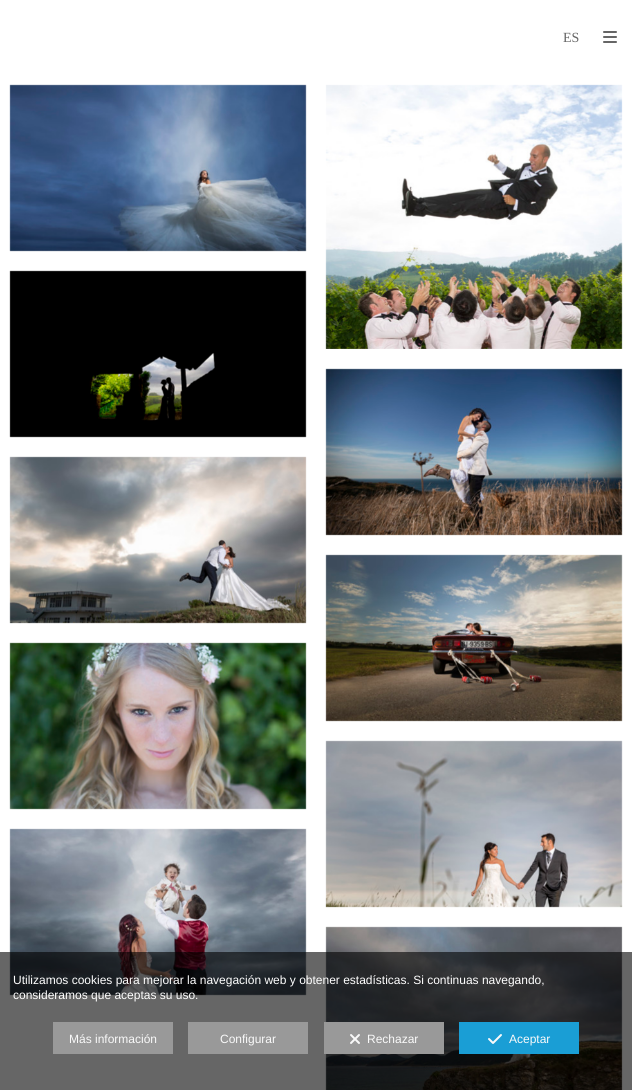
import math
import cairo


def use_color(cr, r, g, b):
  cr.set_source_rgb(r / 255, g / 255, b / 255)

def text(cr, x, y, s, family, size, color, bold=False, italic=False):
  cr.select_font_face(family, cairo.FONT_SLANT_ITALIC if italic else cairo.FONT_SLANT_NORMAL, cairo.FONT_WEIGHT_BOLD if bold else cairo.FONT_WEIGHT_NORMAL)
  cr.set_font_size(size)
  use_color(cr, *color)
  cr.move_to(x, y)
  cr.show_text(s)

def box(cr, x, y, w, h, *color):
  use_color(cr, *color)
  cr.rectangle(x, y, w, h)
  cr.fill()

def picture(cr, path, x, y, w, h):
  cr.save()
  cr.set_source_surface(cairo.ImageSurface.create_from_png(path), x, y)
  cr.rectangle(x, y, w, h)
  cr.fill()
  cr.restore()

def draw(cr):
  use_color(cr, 255, 255, 255)
  cr.paint()
  picture(cr, "img_01.png", 603, 31, 14, 12)
  picture(cr, "img_02.png", 9, 84, 298, 168)
  picture(cr, "img_03.png", 325, 84, 298, 265)
  picture(cr, "img_04.png", 9, 270, 298, 168)
  picture(cr, "img_05.png", 325, 368, 298, 168)
  picture(cr, "img_06.png", 9, 456, 298, 168)
  picture(cr, "img_07.png", 325, 554, 298, 168)
  picture(cr, "img_08.png", 9, 642, 298, 168)
  picture(cr, "img_09.png", 325, 740, 298, 168)
  picture(cr, "img_10.png", 9, 828, 298, 168)
  picture(cr, "img_11.png", 325, 926, 298, 164)
  cr.set_source_rgba(0, 0, 0, 0.6)
  cr.rectangle(0, 952, 632, 138)
  cr.fill()
  box(cr, 53, 1022, 120, 32, 153, 153, 153)
  box(cr, 188, 1022, 120, 32, 153, 153, 153)
  box(cr, 324, 1022, 120, 32, 153, 153, 153)
  picture(cr, "img_12.png", 350, 1034, 10, 10)
  box(cr, 459, 1022, 120, 32, 26, 158, 213)
  picture(cr, "img_13.png", 488, 1034, 14, 10)
  text(cr, 563, 42, "ES", "Liberation Serif", 14, (102, 102, 102))
  text(cr, 13, 984, "Utilizamos cookies para mejorar la navegación web y obtener estadísticas. Si continuas navegando,", "Liberation Sans", 12, (255, 255, 255))
  text(cr, 13, 999, "consideramos que aceptas su uso.", "Liberation Sans", 12, (255, 255, 255))
  text(cr, 69, 1043, "Más información", "Liberation Sans", 12, (249, 249, 249))
  text(cr, 220, 1043, "Configurar", "Liberation Sans", 12, (249, 249, 249))
  text(cr, 367, 1043, "Rechazar", "Liberation Sans", 12, (249, 249, 249))
  text(cr, 509, 1043, "Aceptar", "Liberation Sans", 12, (249, 249, 249))


surface = cairo.ImageSurface(cairo.FORMAT_RGB24, 632, 1090)
cr = cairo.Context(surface)
options = cairo.FontOptions()
options.set_hint_metrics(cairo.HINT_METRICS_OFF)
options.set_hint_style(cairo.HINT_STYLE_NONE)
cr.set_font_options(options)
cr.set_miter_limit(4)
draw(cr)
surface.write_to_png("out.png")
